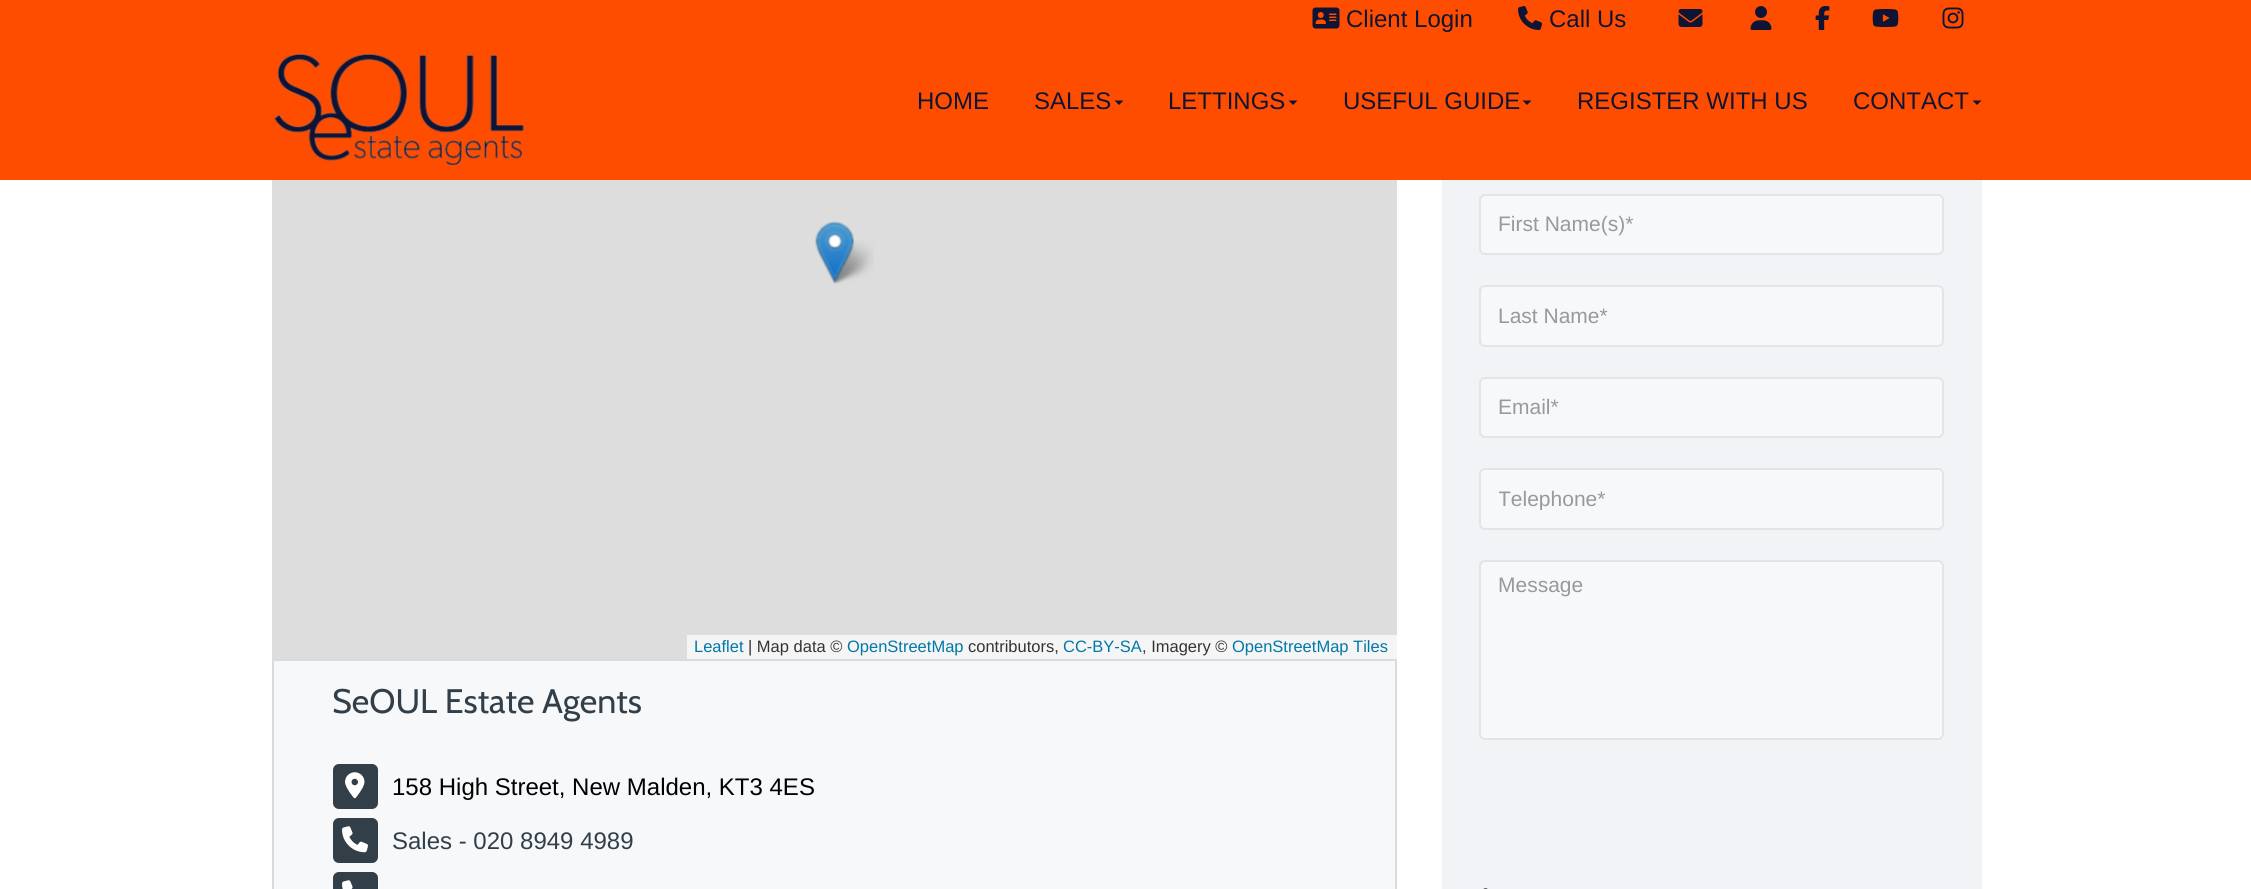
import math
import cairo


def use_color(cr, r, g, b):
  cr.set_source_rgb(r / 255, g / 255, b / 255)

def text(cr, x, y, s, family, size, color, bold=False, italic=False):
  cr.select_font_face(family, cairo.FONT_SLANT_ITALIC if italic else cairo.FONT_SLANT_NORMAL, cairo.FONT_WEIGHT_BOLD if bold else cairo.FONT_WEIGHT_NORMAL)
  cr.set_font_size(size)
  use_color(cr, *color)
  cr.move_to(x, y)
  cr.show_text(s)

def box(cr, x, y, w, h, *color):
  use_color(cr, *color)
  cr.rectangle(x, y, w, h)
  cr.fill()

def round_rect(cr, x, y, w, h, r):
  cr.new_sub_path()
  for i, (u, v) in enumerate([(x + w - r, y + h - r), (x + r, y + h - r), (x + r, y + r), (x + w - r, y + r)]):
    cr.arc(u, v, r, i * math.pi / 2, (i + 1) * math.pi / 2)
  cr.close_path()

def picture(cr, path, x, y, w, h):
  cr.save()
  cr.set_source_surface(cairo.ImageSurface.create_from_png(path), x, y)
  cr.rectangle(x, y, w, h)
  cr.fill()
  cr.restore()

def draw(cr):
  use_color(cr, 255, 255, 255)
  cr.paint()
  box(cr, 0, 0, 2251, 180, 255, 77, 0)
  picture(cr, "img_01.png", 1312, 7, 28, 22)
  picture(cr, "img_02.png", 1518, 6, 24, 24)
  picture(cr, "img_03.png", 1678, 9, 25, 18)
  picture(cr, "img_04.png", 1750, 6, 22, 24)
  picture(cr, "img_05.png", 1815, 6, 15, 24)
  picture(cr, "img_06.png", 1872, 9, 27, 18)
  picture(cr, "img_07.png", 1942, 7, 22, 22)
  picture(cr, "img_08.png", 273, 53, 251, 112)
  use_color(cr, 15, 20, 52)
  cr.new_path()
  cr.move_to(1114.5, 100.5)
  cr.line_to(1123.5, 100.5)
  cr.line_to(1119, 105)
  cr.close_path()
  cr.fill()
  cr.new_path()
  cr.move_to(1288.5, 100.5)
  cr.line_to(1297.5, 100.5)
  cr.line_to(1293, 105)
  cr.close_path()
  cr.fill()
  cr.new_path()
  cr.move_to(1522.5, 100.5)
  cr.line_to(1531.5, 100.5)
  cr.line_to(1527, 105)
  cr.close_path()
  cr.fill()
  cr.new_path()
  cr.move_to(1972.5, 100.5)
  cr.line_to(1981.5, 100.5)
  cr.line_to(1977, 105)
  cr.close_path()
  cr.fill()
  box(cr, 1442, 180, 540, 709, 241, 243, 246)
  use_color(cr, 247, 248, 250)
  round_rect(cr, 1480, 195, 463, 59, 5)
  cr.fill_preserve()
  use_color(cr, 228, 228, 228)
  cr.stroke()
  use_color(cr, 247, 248, 250)
  round_rect(cr, 1480, 286, 463, 60, 5)
  cr.fill_preserve()
  use_color(cr, 228, 228, 228)
  cr.stroke()
  use_color(cr, 247, 248, 250)
  round_rect(cr, 1480, 378, 463, 59, 5)
  cr.fill_preserve()
  use_color(cr, 228, 228, 228)
  cr.stroke()
  use_color(cr, 247, 248, 250)
  round_rect(cr, 1480, 469, 463, 60, 5)
  cr.fill_preserve()
  use_color(cr, 228, 228, 228)
  cr.stroke()
  use_color(cr, 247, 248, 250)
  round_rect(cr, 1480, 561, 463, 178, 5)
  cr.fill_preserve()
  use_color(cr, 228, 228, 228)
  cr.stroke()
  picture(cr, "img_09.png", 1483, 888, 5, 1)
  box(cr, 272, 180, 1125, 479, 221, 221, 221)
  picture(cr, "img_11.png", 829, 240, 45, 44)
  picture(cr, "img_10.png", 815, 221, 39, 63)
  box(cr, 687, 635, 710, 24, 245, 245, 245)
  use_color(cr, 247, 248, 250)
  cr.rectangle(273, 660, 1123, 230)
  cr.fill_preserve()
  use_color(cr, 218, 219, 223)
  cr.stroke()
  use_color(cr, 50, 63, 72)
  round_rect(cr, 333, 764, 45, 45, 6)
  cr.fill()
  picture(cr, "img_12.png", 345, 772, 20, 27)
  round_rect(cr, 333, 818, 45, 45, 6)
  cr.fill()
  picture(cr, "img_13.png", 342, 826, 26, 27)
  round_rect(cr, 333, 872, 45, 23, 6)
  cr.fill()
  picture(cr, "img_14.png", 342, 880, 11, 9)
  text(cr, 1346, 27, "Client Login", "Liberation Sans", 24, (15, 20, 52))
  text(cr, 1549, 27, "Call Us", "Liberation Sans", 24, (15, 20, 52))
  text(cr, 917, 109, "HOME", "Liberation Sans", 24, (15, 20, 52))
  text(cr, 1034, 109, "SALES", "Liberation Sans", 24, (15, 20, 52))
  text(cr, 1168, 109, "LETTINGS", "Liberation Sans", 24, (15, 20, 52))
  text(cr, 1343, 109, "USEFUL GUIDE", "Liberation Sans", 24, (15, 20, 52))
  text(cr, 1577, 109, "REGISTER WITH US", "Liberation Sans", 24, (15, 20, 52))
  text(cr, 1853, 109, "CONTACT", "Liberation Sans", 24, (15, 20, 52))
  text(cr, 1498, 231, "First Name(s)*", "Liberation Sans", 21, (153, 153, 153))
  text(cr, 1498, 323, "Last Name*", "Liberation Sans", 21, (153, 153, 153))
  text(cr, 1498, 414, "Email*", "Liberation Sans", 21, (153, 153, 153))
  cr.save()
  cr.rectangle(1499, 486, 426, 24)
  cr.clip()
  text(cr, 1498, 506, "Telephone*", "Liberation Sans", 21, (153, 153, 153))
  cr.restore()
  text(cr, 1498, 592, "Message", "Liberation Sans", 21, (153, 153, 153))
  text(cr, 694, 652, "Leaflet", "Liberation Sans", 16.5, (0, 120, 168))
  text(cr, 748, 652, "| Map data ©", "Liberation Sans", 16.5, (51, 51, 51))
  text(cr, 847, 652, "OpenStreetMap", "Liberation Sans", 16.5, (0, 120, 168))
  text(cr, 968, 652, "contributors,", "Liberation Sans", 16.5, (51, 51, 51))
  text(cr, 1063, 652, "CC-BY-SA", "Liberation Sans", 16.5, (0, 120, 168))
  text(cr, 1142, 652, ", Imagery ©", "Liberation Sans", 16.5, (51, 51, 51))
  text(cr, 1232, 652, "OpenStreetMap Tiles", "Liberation Sans", 16.5, (0, 120, 168))
  text(cr, 332, 713, "SeOUL Estate Agents", "Cabin", 34, (50, 63, 72))
  text(cr, 392, 795, "158 High Street, New Malden, KT3 4ES", "Liberation Sans", 24, (0, 0, 0))
  text(cr, 392, 849, "Sales - 020 8949 4989", "Liberation Sans", 24, (50, 63, 72))


surface = cairo.ImageSurface(cairo.FORMAT_RGB24, 2251, 889)
cr = cairo.Context(surface)
options = cairo.FontOptions()
options.set_hint_metrics(cairo.HINT_METRICS_OFF)
options.set_hint_style(cairo.HINT_STYLE_NONE)
cr.set_font_options(options)
cr.set_miter_limit(4)
draw(cr)
surface.write_to_png("out.png")
